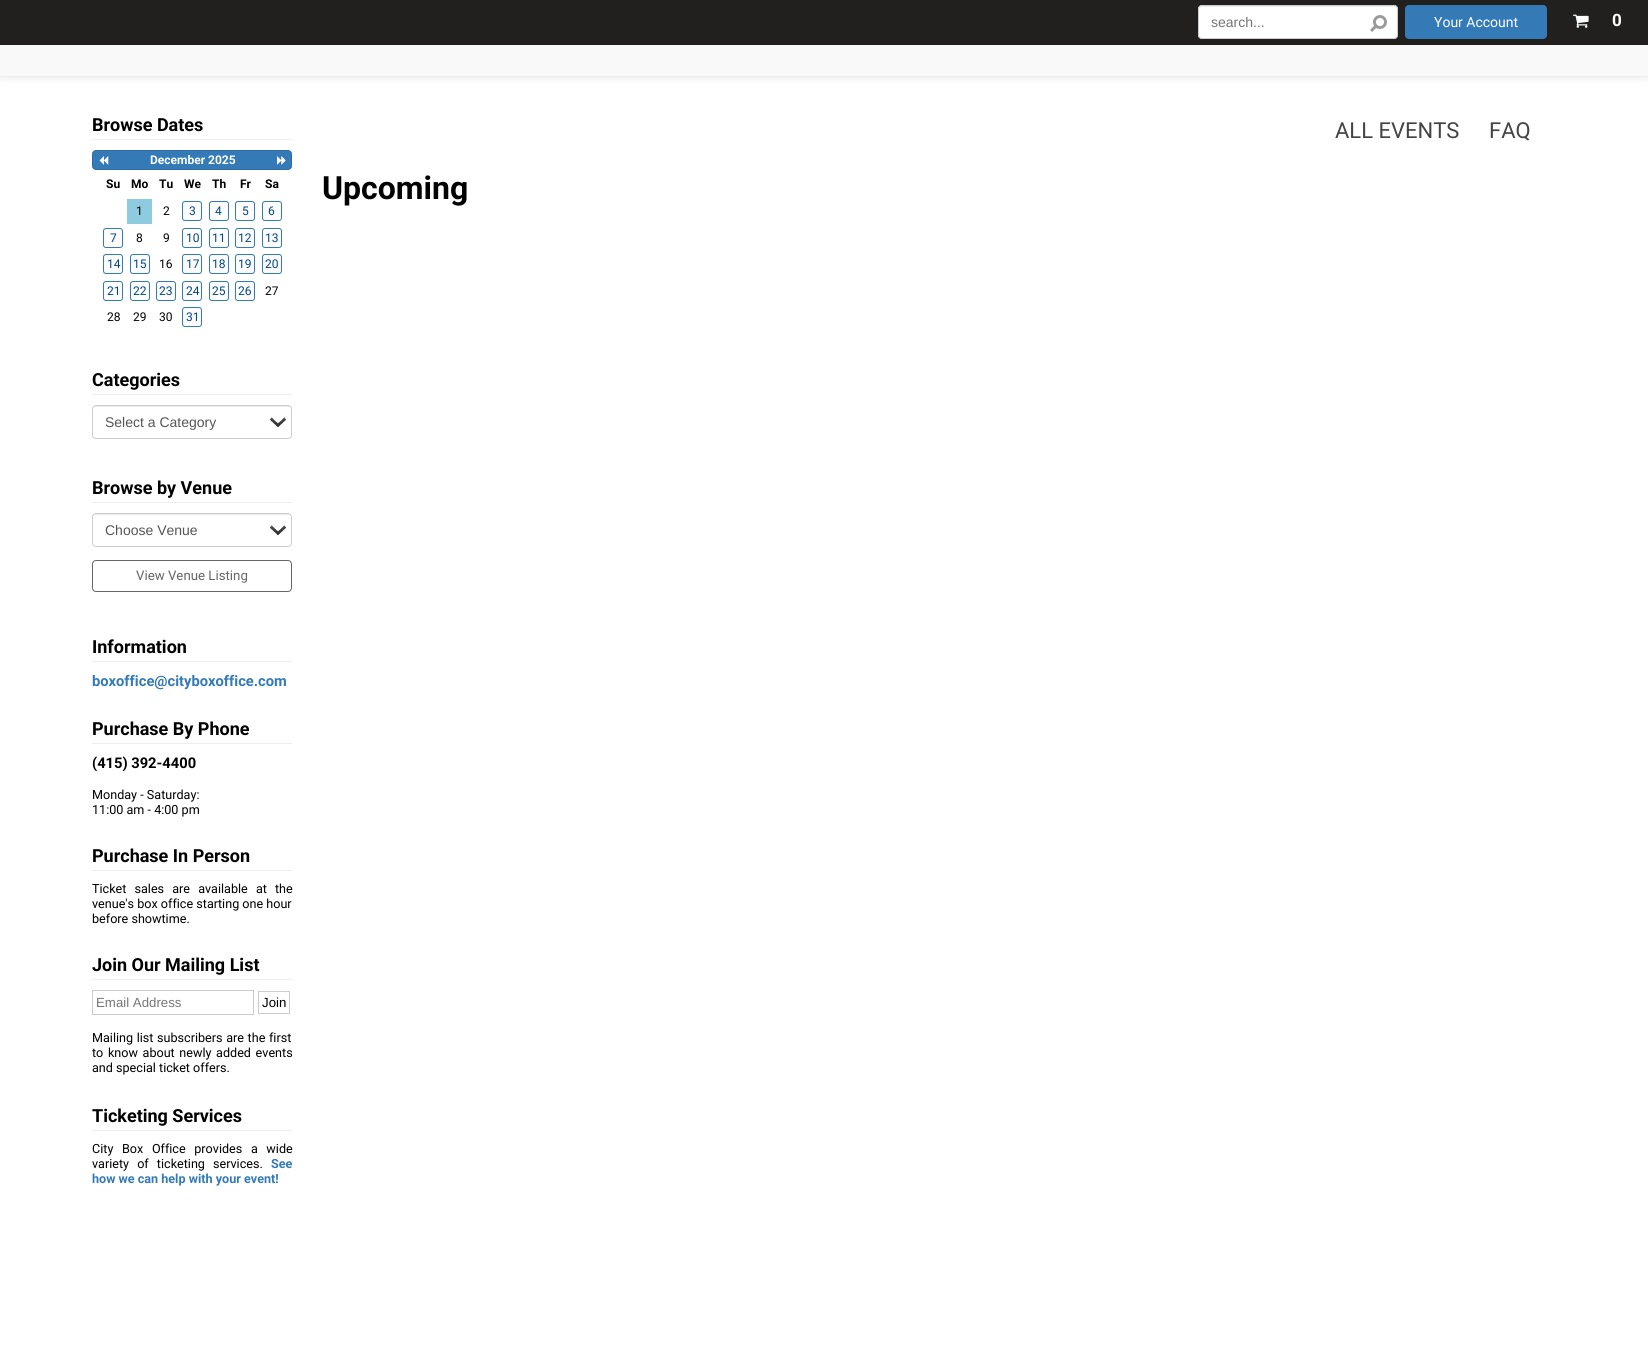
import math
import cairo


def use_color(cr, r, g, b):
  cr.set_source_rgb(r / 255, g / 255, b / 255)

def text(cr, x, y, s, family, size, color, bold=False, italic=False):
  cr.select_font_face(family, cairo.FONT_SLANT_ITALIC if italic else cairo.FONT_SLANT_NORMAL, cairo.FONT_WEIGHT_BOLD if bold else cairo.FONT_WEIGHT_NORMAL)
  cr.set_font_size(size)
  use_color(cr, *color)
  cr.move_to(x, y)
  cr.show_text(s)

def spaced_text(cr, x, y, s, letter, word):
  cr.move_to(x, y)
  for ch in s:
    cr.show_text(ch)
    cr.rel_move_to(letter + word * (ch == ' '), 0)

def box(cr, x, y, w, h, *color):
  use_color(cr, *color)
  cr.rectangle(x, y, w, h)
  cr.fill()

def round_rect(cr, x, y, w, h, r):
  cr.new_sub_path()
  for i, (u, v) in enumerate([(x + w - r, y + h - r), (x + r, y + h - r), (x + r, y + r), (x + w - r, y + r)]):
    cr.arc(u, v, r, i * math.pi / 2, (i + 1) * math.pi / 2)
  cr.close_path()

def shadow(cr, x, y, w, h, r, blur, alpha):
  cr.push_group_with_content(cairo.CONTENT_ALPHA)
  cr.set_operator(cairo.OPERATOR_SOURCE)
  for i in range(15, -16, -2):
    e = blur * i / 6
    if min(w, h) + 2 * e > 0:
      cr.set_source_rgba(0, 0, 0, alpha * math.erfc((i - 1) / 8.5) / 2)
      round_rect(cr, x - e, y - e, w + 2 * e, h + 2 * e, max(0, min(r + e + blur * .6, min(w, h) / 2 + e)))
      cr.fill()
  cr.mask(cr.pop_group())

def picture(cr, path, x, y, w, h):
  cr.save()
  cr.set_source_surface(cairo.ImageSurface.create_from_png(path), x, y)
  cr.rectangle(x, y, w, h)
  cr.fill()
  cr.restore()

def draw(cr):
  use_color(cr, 255, 255, 255)
  cr.paint()
  use_color(cr, 0, 0, 0)
  shadow(cr, 0, 0, 1648, 77, 0, 5, 0.1)
  box(cr, 0, 0, 1648, 45, 34, 31, 31)
  use_color(cr, 255, 255, 255)
  round_rect(cr, 1198, 5, 200, 34, 4)
  cr.fill()
  use_color(cr, 236, 236, 236)
  cr.new_path()
  cr.move_to(1202, 7)
  cr.line_to(1394, 7)
  cr.curve_to(1396, 7, 1397, 8, 1397, 10)
  cr.curve_to(1397, 8, 1396, 6, 1394, 6)
  cr.line_to(1202, 6)
  cr.curve_to(1200, 6, 1199, 8, 1199, 10)
  cr.curve_to(1199, 8, 1200, 7, 1202, 7)
  cr.close_path()
  cr.fill()
  round_rect(cr, 1198.5, 5.5, 199, 33, 3.5)
  use_color(cr, 204, 204, 204)
  cr.set_line_width(1)
  cr.stroke()
  picture(cr, "img_01.png", 1370, 15, 17, 17)
  use_color(cr, 51, 122, 183)
  round_rect(cr, 1405.5, 5.5, 141, 33, 3.5)
  cr.fill_preserve()
  cr.stroke()
  picture(cr, "img_02.png", 1573, 14, 16, 14)
  box(cr, 92, 139, 200, 1, 238, 238, 238)
  use_color(cr, 51, 122, 183)
  round_rect(cr, 92.5, 150.5, 199, 19, 3.5)
  cr.fill_preserve()
  use_color(cr, 46, 109, 164)
  cr.stroke()
  picture(cr, "img_03.png", 99, 156, 10, 9)
  picture(cr, "img_04.png", 277, 156, 9, 9)
  box(cr, 127, 199, 25, 25, 142, 202, 224)
  use_color(cr, 252, 252, 252)
  round_rect(cr, 182.5, 201.5, 19, 19, 2.5)
  cr.fill_preserve()
  use_color(cr, 51, 122, 183)
  cr.stroke()
  use_color(cr, 252, 252, 252)
  round_rect(cr, 209.5, 201.5, 19, 19, 2.5)
  cr.fill_preserve()
  use_color(cr, 51, 122, 183)
  cr.stroke()
  use_color(cr, 252, 252, 252)
  round_rect(cr, 235.5, 201.5, 19, 19, 2.5)
  cr.fill_preserve()
  use_color(cr, 51, 122, 183)
  cr.stroke()
  use_color(cr, 252, 252, 252)
  round_rect(cr, 262.5, 201.5, 19, 19, 2.5)
  cr.fill_preserve()
  use_color(cr, 51, 122, 183)
  cr.stroke()
  use_color(cr, 252, 252, 252)
  round_rect(cr, 103.5, 228.5, 19, 19, 2.5)
  cr.fill_preserve()
  use_color(cr, 51, 122, 183)
  cr.stroke()
  use_color(cr, 252, 252, 252)
  round_rect(cr, 182.5, 228.5, 19, 19, 2.5)
  cr.fill_preserve()
  use_color(cr, 51, 122, 183)
  cr.stroke()
  use_color(cr, 252, 252, 252)
  round_rect(cr, 209.5, 228.5, 19, 19, 2.5)
  cr.fill_preserve()
  use_color(cr, 51, 122, 183)
  cr.stroke()
  use_color(cr, 252, 252, 252)
  round_rect(cr, 235.5, 228.5, 19, 19, 2.5)
  cr.fill_preserve()
  use_color(cr, 51, 122, 183)
  cr.stroke()
  use_color(cr, 252, 252, 252)
  round_rect(cr, 262.5, 228.5, 19, 19, 2.5)
  cr.fill_preserve()
  use_color(cr, 51, 122, 183)
  cr.stroke()
  use_color(cr, 252, 252, 252)
  round_rect(cr, 103.5, 254.5, 19, 19, 2.5)
  cr.fill_preserve()
  use_color(cr, 51, 122, 183)
  cr.stroke()
  use_color(cr, 252, 252, 252)
  round_rect(cr, 130.5, 254.5, 19, 19, 2.5)
  cr.fill_preserve()
  use_color(cr, 51, 122, 183)
  cr.stroke()
  use_color(cr, 252, 252, 252)
  round_rect(cr, 182.5, 254.5, 19, 19, 2.5)
  cr.fill_preserve()
  use_color(cr, 51, 122, 183)
  cr.stroke()
  use_color(cr, 252, 252, 252)
  round_rect(cr, 209.5, 254.5, 19, 19, 2.5)
  cr.fill_preserve()
  use_color(cr, 51, 122, 183)
  cr.stroke()
  use_color(cr, 252, 252, 252)
  round_rect(cr, 235.5, 254.5, 19, 19, 2.5)
  cr.fill_preserve()
  use_color(cr, 51, 122, 183)
  cr.stroke()
  use_color(cr, 252, 252, 252)
  round_rect(cr, 262.5, 254.5, 19, 19, 2.5)
  cr.fill_preserve()
  use_color(cr, 51, 122, 183)
  cr.stroke()
  use_color(cr, 252, 252, 252)
  round_rect(cr, 103.5, 281.5, 19, 19, 2.5)
  cr.fill_preserve()
  use_color(cr, 51, 122, 183)
  cr.stroke()
  use_color(cr, 252, 252, 252)
  round_rect(cr, 130.5, 281.5, 19, 19, 2.5)
  cr.fill_preserve()
  use_color(cr, 51, 122, 183)
  cr.stroke()
  use_color(cr, 252, 252, 252)
  round_rect(cr, 156.5, 281.5, 19, 19, 2.5)
  cr.fill_preserve()
  use_color(cr, 51, 122, 183)
  cr.stroke()
  use_color(cr, 252, 252, 252)
  round_rect(cr, 182.5, 281.5, 19, 19, 2.5)
  cr.fill_preserve()
  use_color(cr, 51, 122, 183)
  cr.stroke()
  use_color(cr, 252, 252, 252)
  round_rect(cr, 209.5, 281.5, 19, 19, 2.5)
  cr.fill_preserve()
  use_color(cr, 51, 122, 183)
  cr.stroke()
  use_color(cr, 252, 252, 252)
  round_rect(cr, 235.5, 281.5, 19, 19, 2.5)
  cr.fill_preserve()
  use_color(cr, 51, 122, 183)
  cr.stroke()
  use_color(cr, 252, 252, 252)
  round_rect(cr, 182.5, 307.5, 19, 19, 2.5)
  cr.fill_preserve()
  use_color(cr, 51, 122, 183)
  cr.stroke()
  box(cr, 92, 394, 200, 1, 238, 238, 238)
  picture(cr, "img_05.png", 270, 417, 16, 10)
  use_color(cr, 236, 236, 236)
  cr.new_path()
  cr.move_to(96, 407)
  cr.line_to(288, 407)
  cr.curve_to(290, 407, 291, 408, 291, 410)
  cr.curve_to(291, 408, 290, 406, 288, 406)
  cr.line_to(96, 406)
  cr.curve_to(94, 406, 93, 408, 93, 410)
  cr.curve_to(93, 408, 94, 407, 96, 407)
  cr.close_path()
  cr.fill()
  round_rect(cr, 92.5, 405.5, 199, 33, 3.5)
  use_color(cr, 204, 204, 204)
  cr.stroke()
  box(cr, 92, 502, 200, 1, 238, 238, 238)
  picture(cr, "img_05.png", 270, 525, 16, 10)
  use_color(cr, 236, 236, 236)
  cr.new_path()
  cr.move_to(96, 515)
  cr.line_to(288, 515)
  cr.curve_to(290, 515, 291, 516, 291, 518)
  cr.curve_to(291, 516, 290, 514, 288, 514)
  cr.line_to(96, 514)
  cr.curve_to(94, 514, 93, 516, 93, 518)
  cr.curve_to(93, 516, 94, 515, 96, 515)
  cr.close_path()
  cr.fill()
  round_rect(cr, 92.5, 513.5, 199, 33, 3.5)
  use_color(cr, 204, 204, 204)
  cr.stroke()
  round_rect(cr, 92.5, 560.5, 199, 31, 3.5)
  use_color(cr, 102, 102, 102)
  cr.stroke()
  box(cr, 92, 661, 200, 1, 238, 238, 238)
  box(cr, 92, 743, 200, 1, 238, 238, 238)
  box(cr, 92, 870, 200, 1, 238, 238, 238)
  box(cr, 92, 979, 200, 1, 238, 238, 238)
  cr.rectangle(92.5, 990.5, 161, 24)
  use_color(cr, 204, 204, 204)
  cr.stroke()
  cr.rectangle(258.5, 991.5, 31, 22)
  cr.stroke()
  box(cr, 92, 1130, 200, 1, 238, 238, 238)
  box(cr, 0, 45, 1648, 31, 249, 249, 249)
  box(cr, 0, 76, 1648, 1, 238, 238, 238)
  text(cr, 1211, 27, "search...", "Liberation Sans", 14, (117, 117, 117))
  text(cr, 1434, 27, "Your Account", "Roboto", 14, (255, 255, 255))
  text(cr, 1612, 26, "0", "Roboto", 17, (255, 255, 255), bold=True)
  text(cr, 92, 131, "Browse Dates", "Roboto", 18, (0, 0, 0), bold=True)
  text(cr, 150, 164, "December 2025", "Roboto", 12, (255, 255, 255), bold=True)
  text(cr, 106, 188, "Su", "Roboto", 12, (0, 0, 0), bold=True)
  text(cr, 131, 188, "Mo", "Roboto", 12, (0, 0, 0), bold=True)
  text(cr, 159, 188, "Tu", "Roboto", 12, (0, 0, 0), bold=True)
  text(cr, 184, 188, "We", "Roboto", 12, (0, 0, 0), bold=True)
  text(cr, 212, 188, "Th", "Roboto", 12, (0, 0, 0), bold=True)
  text(cr, 240, 188, "Fr", "Roboto", 12, (0, 0, 0), bold=True)
  text(cr, 265, 188, "Sa", "Roboto", 12, (0, 0, 0), bold=True)
  text(cr, 136, 215, "1", "Roboto", 12, (0, 0, 0))
  text(cr, 163, 215, "2", "Roboto", 12, (0, 0, 0))
  text(cr, 189, 215, "3", "Roboto", 12, (0, 69, 138))
  text(cr, 215, 215, "4", "Roboto", 12, (0, 69, 138))
  text(cr, 242, 215, "5", "Roboto", 12, (0, 69, 138))
  text(cr, 268, 215, "6", "Roboto", 12, (0, 69, 138))
  text(cr, 110, 242, "7", "Roboto", 12, (0, 69, 138))
  text(cr, 136, 242, "8", "Roboto", 12, (0, 0, 0))
  text(cr, 163, 242, "9", "Roboto", 12, (0, 0, 0))
  text(cr, 186, 242, "10", "Roboto", 12, (0, 69, 138))
  text(cr, 212, 242, "11", "Roboto", 12, (0, 69, 138))
  text(cr, 238, 242, "12", "Roboto", 12, (0, 69, 138))
  text(cr, 265, 242, "13", "Roboto", 12, (0, 69, 138))
  text(cr, 107, 268, "14", "Roboto", 12, (0, 69, 138))
  text(cr, 133, 268, "15", "Roboto", 12, (0, 69, 138))
  text(cr, 159, 268, "16", "Roboto", 12, (0, 0, 0))
  text(cr, 186, 268, "17", "Roboto", 12, (0, 69, 138))
  text(cr, 212, 268, "18", "Roboto", 12, (0, 69, 138))
  text(cr, 238, 268, "19", "Roboto", 12, (0, 69, 138))
  text(cr, 265, 268, "20", "Roboto", 12, (0, 69, 138))
  text(cr, 107, 295, "21", "Roboto", 12, (0, 69, 138))
  text(cr, 133, 295, "22", "Roboto", 12, (0, 69, 138))
  text(cr, 159, 295, "23", "Roboto", 12, (0, 69, 138))
  text(cr, 186, 295, "24", "Roboto", 12, (0, 69, 138))
  text(cr, 212, 295, "25", "Roboto", 12, (0, 69, 138))
  text(cr, 238, 295, "26", "Roboto", 12, (0, 69, 138))
  text(cr, 265, 295, "27", "Roboto", 12, (0, 0, 0))
  text(cr, 107, 321, "28", "Roboto", 12, (0, 0, 0))
  text(cr, 133, 321, "29", "Roboto", 12, (0, 0, 0))
  text(cr, 159, 321, "30", "Roboto", 12, (0, 0, 0))
  text(cr, 186, 321, "31", "Roboto", 12, (0, 69, 138))
  text(cr, 92, 386, "Categories", "Roboto", 18, (0, 0, 0), bold=True)
  text(cr, 105, 427, "Select a Category", "Liberation Sans", 14, (85, 85, 85))
  text(cr, 92, 494, "Browse by Venue", "Roboto", 18, (0, 0, 0), bold=True)
  text(cr, 105, 535, "Choose Venue", "Liberation Sans", 14, (85, 85, 85))
  text(cr, 136, 580, "View Venue Listing", "Roboto", 13.25, (102, 102, 102))
  text(cr, 92, 653, "Information", "Roboto", 18, (0, 0, 0), bold=True)
  text(cr, 92, 686, "boxoffice@cityboxoffice.com", "Roboto", 14.7, (51, 122, 183), bold=True)
  text(cr, 92, 735, "Purchase By Phone", "Roboto", 18, (0, 0, 0), bold=True)
  text(cr, 92, 768, "(415) 392-4400", "Roboto", 14.7, (0, 0, 0), bold=True)
  text(cr, 92, 799, "Monday - Saturday:", "Roboto", 12.6, (0, 0, 0))
  text(cr, 92, 814, "11:00 am - 4:00 pm", "Roboto", 12.6, (0, 0, 0))
  text(cr, 92, 862, "Purchase In Person", "Roboto", 18, (0, 0, 0), bold=True)
  cr.select_font_face("Roboto")
  cr.set_font_size(12.6)
  spaced_text(cr, 92, 893, "Ticket sales are available at the", 0, 5)
  text(cr, 92, 908, "venue's box office starting one hour", "Roboto", 12.6, (0, 0, 0))
  text(cr, 92, 923, "before showtime.", "Roboto", 12.6, (0, 0, 0))
  text(cr, 92, 971, "Join Our Mailing List", "Roboto", 18, (0, 0, 0), bold=True)
  text(cr, 96, 1007, "Email Address", "Liberation Sans", 13.25, (117, 117, 117))
  text(cr, 262, 1007, "Join", "Liberation Sans", 13.25, (0, 0, 0))
  cr.select_font_face("Roboto")
  cr.set_font_size(12.6)
  spaced_text(cr, 92, 1042, "Mailing list subscribers are the first", 0, 0.5)
  spaced_text(cr, 92, 1057, "to know about newly added events", 0, 1.5)
  text(cr, 92, 1072, "and special ticket offers.", "Roboto", 12.6, (0, 0, 0))
  text(cr, 92, 1122, "Ticketing Services", "Roboto", 18, (0, 0, 0), bold=True)
  cr.select_font_face("Roboto")
  cr.set_font_size(12.6)
  spaced_text(cr, 92, 1153, "City Box Office provides a wide", 0, 5.5)
  spaced_text(cr, 92, 1168, "variety of ticketing services.", 0, 5)
  text(cr, 271, 1168, "See", "Roboto", 12.6, (51, 122, 183), bold=True)
  text(cr, 92, 1183, "how we can help with your event!", "Roboto", 12.6, (51, 122, 183), bold=True)
  text(cr, 322, 199, "Upcoming", "Roboto", 32, (0, 0, 0), bold=True)
  text(cr, 1335, 138, "ALL EVENTS", "Roboto", 22, (68, 68, 68))
  text(cr, 1489, 138, "FAQ", "Roboto", 22, (68, 68, 68))


surface = cairo.ImageSurface(cairo.FORMAT_RGB24, 1648, 1356)
cr = cairo.Context(surface)
options = cairo.FontOptions()
options.set_hint_metrics(cairo.HINT_METRICS_OFF)
options.set_hint_style(cairo.HINT_STYLE_NONE)
cr.set_font_options(options)
cr.set_miter_limit(4)
draw(cr)
surface.write_to_png("out.png")
